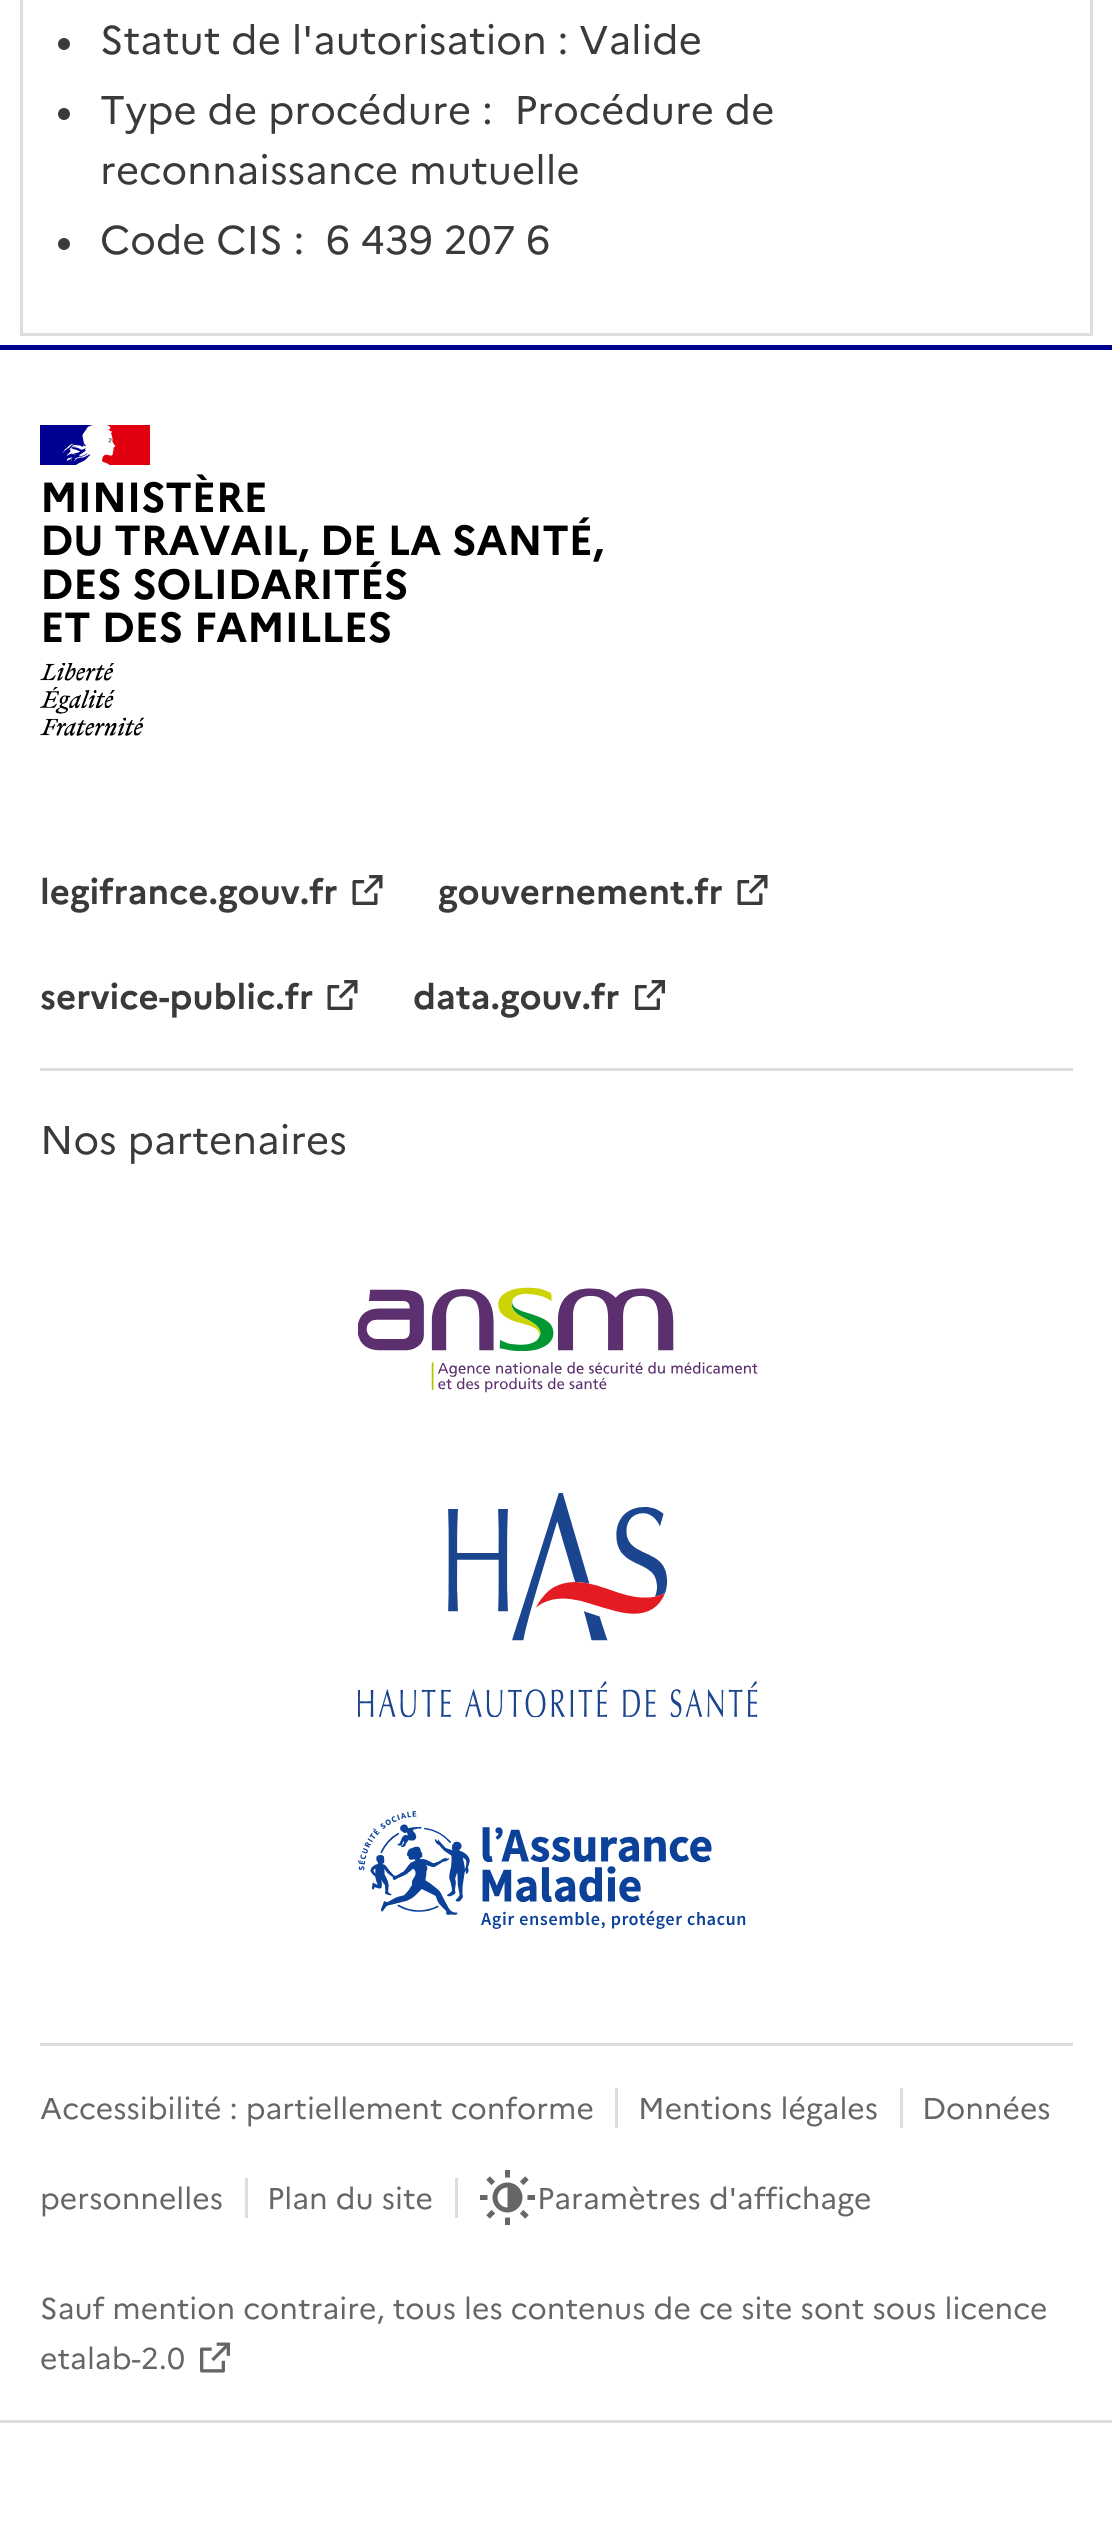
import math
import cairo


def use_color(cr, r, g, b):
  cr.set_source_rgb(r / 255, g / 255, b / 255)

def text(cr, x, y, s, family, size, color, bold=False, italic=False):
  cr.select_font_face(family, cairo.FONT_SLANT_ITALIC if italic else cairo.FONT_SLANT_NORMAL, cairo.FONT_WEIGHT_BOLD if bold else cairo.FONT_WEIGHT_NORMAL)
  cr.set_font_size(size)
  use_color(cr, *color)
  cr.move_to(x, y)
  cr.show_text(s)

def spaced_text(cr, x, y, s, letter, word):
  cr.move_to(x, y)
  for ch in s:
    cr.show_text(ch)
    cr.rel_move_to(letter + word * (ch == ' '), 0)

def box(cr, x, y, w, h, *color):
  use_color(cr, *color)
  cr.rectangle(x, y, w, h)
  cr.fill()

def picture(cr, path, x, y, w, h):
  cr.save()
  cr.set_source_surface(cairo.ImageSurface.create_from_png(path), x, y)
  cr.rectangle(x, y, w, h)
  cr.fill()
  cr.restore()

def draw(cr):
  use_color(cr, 255, 255, 255)
  cr.paint()
  box(cr, 20, 333, 1073, 3, 221, 221, 221)
  box(cr, 1090, 0, 3, 335, 221, 221, 221)
  box(cr, 20, 0, 3, 335, 221, 221, 221)
  use_color(cr, 58, 58, 58)
  cr.arc(64, 44, 6, 0, 2 * math.pi)
  cr.fill()
  cr.arc(64, 114, 6, 0, 2 * math.pi)
  cr.fill()
  cr.arc(64, 244, 6, 0, 2 * math.pi)
  cr.fill()
  box(cr, 0, 2420, 1112, 3, 221, 221, 221)
  box(cr, 0, 345, 1112, 5, 0, 0, 145)
  box(cr, 40, 425, 54, 40, 0, 0, 145)
  box(cr, 102, 425, 48, 40, 225, 0, 15)
  picture(cr, "img_01.png", 62, 425, 54, 40)
  picture(cr, "img_02.png", 40, 663, 104, 73)
  picture(cr, "img_03.png", 352, 875, 31, 30)
  picture(cr, "img_03.png", 737, 875, 31, 30)
  picture(cr, "img_03.png", 327, 980, 31, 30)
  picture(cr, "img_04.png", 635, 980, 30, 30)
  box(cr, 40, 1068, 1033, 3, 221, 221, 221)
  picture(cr, "img_05.png", 358, 1287, 400, 106)
  picture(cr, "img_06.png", 358, 1493, 400, 225)
  picture(cr, "img_07.png", 358, 1811, 388, 118)
  box(cr, 40, 2043, 1033, 3, 221, 221, 221)
  box(cr, 900, 2088, 3, 40, 221, 221, 221)
  box(cr, 615, 2088, 3, 40, 221, 221, 221)
  box(cr, 245, 2178, 3, 40, 221, 221, 221)
  box(cr, 455, 2178, 3, 40, 221, 221, 221)
  picture(cr, "img_08.png", 480, 2170, 55, 55)
  picture(cr, "img_09.png", 200, 2342, 30, 31)
  text(cr, 100, 54, "Statut de l'autorisation : Valide", "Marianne", 40, (58, 58, 58))
  text(cr, 100, 124, "Type de procédure :  Procédure de", "Marianne", 40, (58, 58, 58))
  text(cr, 100, 184, "reconnaissance mutuelle", "Marianne", 40, (58, 58, 58))
  text(cr, 100, 254, "Code CIS :  6 439 207 6", "Marianne", 40, (58, 58, 58))
  cr.select_font_face("Marianne", cairo.FONT_SLANT_NORMAL, cairo.FONT_WEIGHT_BOLD)
  cr.set_font_size(42)
  use_color(cr, 0, 0, 0)
  spaced_text(cr, 40, 512, "MINISTÈRE", -0.4, 0)
  spaced_text(cr, 40, 555, "DU TRAVAIL, DE LA SANTÉ,", -0.4, 0)
  spaced_text(cr, 40, 599, "DES SOLIDARITÉS", -0.4, 0)
  spaced_text(cr, 40, 642, "ET DES FAMILLES", -0.4, 0)
  text(cr, 40, 904, "legifrance.gouv.fr", "Marianne", 35, (58, 58, 58), bold=True)
  text(cr, 438, 904, "gouvernement.fr", "Marianne", 35, (58, 58, 58), bold=True)
  text(cr, 40, 1009, "service-public.fr", "Marianne", 35, (58, 58, 58), bold=True)
  text(cr, 413, 1009, "data.gouv.fr", "Marianne", 35, (58, 58, 58), bold=True)
  text(cr, 40, 1154, "Nos partenaires", "Marianne", 40, (58, 58, 58))
  text(cr, 40, 2119, "Accessibilité : partiellement conforme", "Marianne", 30, (102, 102, 102))
  text(cr, 922, 2119, "Données", "Marianne", 30, (102, 102, 102))
  text(cr, 40, 2209, "personnelles", "Marianne", 30, (102, 102, 102))
  text(cr, 638, 2119, "Mentions légales", "Marianne", 30, (102, 102, 102))
  text(cr, 267, 2209, "Plan du site", "Marianne", 30, (102, 102, 102))
  text(cr, 537, 2209, "Paramètres d'affichage", "Marianne", 30, (102, 102, 102))
  text(cr, 40, 2319, "Sauf mention contraire, tous les contenus de ce site sont sous licence", "Marianne", 30, (102, 102, 102))
  text(cr, 40, 2369, "etalab-2.0", "Marianne", 30, (102, 102, 102))


surface = cairo.ImageSurface(cairo.FORMAT_RGB24, 1112, 2539)
cr = cairo.Context(surface)
options = cairo.FontOptions()
options.set_hint_metrics(cairo.HINT_METRICS_OFF)
options.set_hint_style(cairo.HINT_STYLE_NONE)
cr.set_font_options(options)
cr.set_miter_limit(4)
draw(cr)
surface.write_to_png("out.png")
